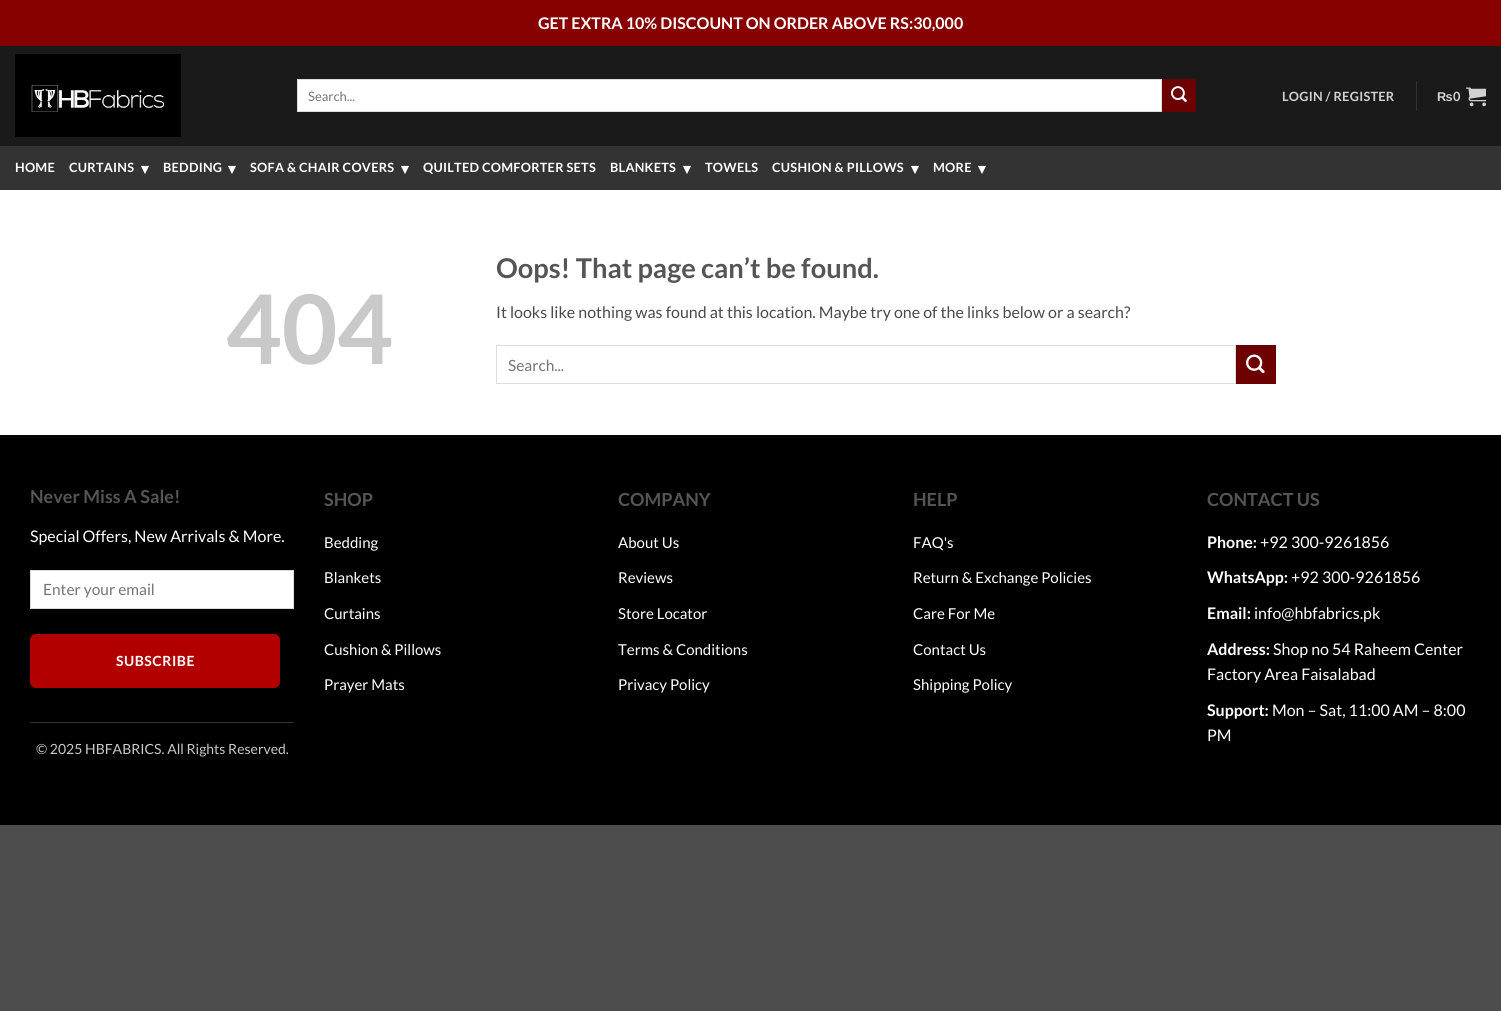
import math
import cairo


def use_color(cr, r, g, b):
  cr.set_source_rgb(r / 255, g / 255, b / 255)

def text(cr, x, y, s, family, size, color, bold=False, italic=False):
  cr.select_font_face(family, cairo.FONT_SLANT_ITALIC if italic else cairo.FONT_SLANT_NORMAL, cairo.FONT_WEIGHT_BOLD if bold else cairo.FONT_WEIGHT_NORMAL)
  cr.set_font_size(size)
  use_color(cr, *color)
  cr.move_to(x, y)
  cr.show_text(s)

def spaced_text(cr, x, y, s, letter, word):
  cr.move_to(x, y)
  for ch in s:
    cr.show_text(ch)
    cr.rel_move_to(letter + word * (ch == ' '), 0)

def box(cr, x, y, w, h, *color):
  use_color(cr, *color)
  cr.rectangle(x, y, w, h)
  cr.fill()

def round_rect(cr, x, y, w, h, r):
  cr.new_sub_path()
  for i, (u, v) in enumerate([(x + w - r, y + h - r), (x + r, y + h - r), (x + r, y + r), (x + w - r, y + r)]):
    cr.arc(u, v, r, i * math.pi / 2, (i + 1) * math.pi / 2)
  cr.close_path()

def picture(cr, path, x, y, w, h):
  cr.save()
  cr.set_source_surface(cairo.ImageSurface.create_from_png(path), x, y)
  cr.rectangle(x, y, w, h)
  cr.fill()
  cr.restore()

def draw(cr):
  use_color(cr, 77, 77, 77)
  cr.paint()
  box(cr, 0, 190, 1501, 245, 255, 255, 255)
  box(cr, 0, 0, 1501, 46, 135, 1, 0)
  box(cr, 0, 46, 1501, 100, 26, 26, 26)
  picture(cr, "img_01.png", 15, 54, 166, 83)
  use_color(cr, 255, 255, 255)
  cr.rectangle(297.5, 79.5, 864, 32)
  cr.fill_preserve()
  use_color(cr, 221, 221, 221)
  cr.set_line_width(1)
  cr.stroke()
  use_color(cr, 109, 0, 0)
  cr.rectangle(1162.5, 79.5, 33, 32)
  cr.fill_preserve()
  use_color(cr, 104, 0, 0)
  cr.stroke()
  picture(cr, "img_02.png", 1171, 86, 16, 16)
  box(cr, 1416, 81, 1, 30, 49, 49, 49)
  picture(cr, "img_03.png", 1466, 87, 20, 20)
  box(cr, 0, 146, 1501, 44, 51, 51, 51)
  cr.rectangle(496.5, 345.5, 739, 38)
  use_color(cr, 221, 221, 221)
  cr.stroke()
  use_color(cr, 109, 0, 0)
  cr.rectangle(1236.5, 345.5, 39, 38)
  cr.fill_preserve()
  use_color(cr, 104, 0, 0)
  cr.stroke()
  picture(cr, "img_04.png", 1246, 354, 19, 20)
  box(cr, 0, 435, 1501, 390, 0, 0, 0)
  use_color(cr, 255, 255, 255)
  cr.rectangle(30.5, 570.5, 263, 38)
  cr.fill_preserve()
  use_color(cr, 221, 221, 221)
  cr.stroke()
  use_color(cr, 178, 0, 0)
  round_rect(cr, 30, 634, 250, 54, 6)
  cr.fill()
  box(cr, 30, 722, 264, 1, 51, 51, 51)
  text(cr, 538, 29, "GET EXTRA 10% DISCOUNT ON ORDER ABOVE RS:30,000", "Lato", 16, (255, 255, 255), bold=True)
  text(cr, 308, 101, "Search...", "Lato", 13, (117, 117, 117))
  cr.select_font_face("Lato", cairo.FONT_SLANT_NORMAL, cairo.FONT_WEIGHT_BOLD)
  cr.set_font_size(12.75)
  use_color(cr, 209, 209, 209)
  spaced_text(cr, 1282, 101, "LOGIN / REGISTER", 0.25, 0)
  cr.select_font_face("Liberation Sans", cairo.FONT_SLANT_NORMAL, cairo.FONT_WEIGHT_BOLD)
  spaced_text(cr, 1437, 101, "₨", 0.25, 0)
  cr.select_font_face("Lato", cairo.FONT_SLANT_NORMAL, cairo.FONT_WEIGHT_BOLD)
  spaced_text(cr, 1453, 101, "0", 0.25, 0)
  use_color(cr, 255, 255, 255)
  spaced_text(cr, 15, 172, "HOME", 0.25, 0)
  spaced_text(cr, 69, 172, "CURTAINS", 0.25, 0)
  cr.select_font_face("DejaVu Sans", cairo.FONT_SLANT_NORMAL, cairo.FONT_WEIGHT_BOLD)
  cr.set_font_size(15)
  spaced_text(cr, 141, 174, "▾", 0.25, 0)
  cr.select_font_face("Lato", cairo.FONT_SLANT_NORMAL, cairo.FONT_WEIGHT_BOLD)
  cr.set_font_size(12.75)
  spaced_text(cr, 163, 172, "BEDDING", 0.25, 0)
  cr.select_font_face("DejaVu Sans", cairo.FONT_SLANT_NORMAL, cairo.FONT_WEIGHT_BOLD)
  cr.set_font_size(15)
  spaced_text(cr, 228, 174, "▾", 0.25, 0)
  cr.select_font_face("Lato", cairo.FONT_SLANT_NORMAL, cairo.FONT_WEIGHT_BOLD)
  cr.set_font_size(12.75)
  spaced_text(cr, 250, 172, "SOFA & CHAIR COVERS", 0.25, 0)
  cr.select_font_face("DejaVu Sans", cairo.FONT_SLANT_NORMAL, cairo.FONT_WEIGHT_BOLD)
  cr.set_font_size(15)
  spaced_text(cr, 401, 174, "▾", 0.25, 0)
  cr.select_font_face("Lato", cairo.FONT_SLANT_NORMAL, cairo.FONT_WEIGHT_BOLD)
  cr.set_font_size(12.75)
  spaced_text(cr, 423, 172, "QUILTED COMFORTER SETS", 0.25, 0)
  spaced_text(cr, 610, 172, "BLANKETS", 0.25, 0)
  cr.select_font_face("DejaVu Sans", cairo.FONT_SLANT_NORMAL, cairo.FONT_WEIGHT_BOLD)
  cr.set_font_size(15)
  spaced_text(cr, 683, 174, "▾", 0.25, 0)
  cr.select_font_face("Lato", cairo.FONT_SLANT_NORMAL, cairo.FONT_WEIGHT_BOLD)
  cr.set_font_size(12.75)
  spaced_text(cr, 705, 172, "TOWELS", 0.25, 0)
  spaced_text(cr, 772, 172, "CUSHION & PILLOWS", 0.25, 0)
  cr.select_font_face("DejaVu Sans", cairo.FONT_SLANT_NORMAL, cairo.FONT_WEIGHT_BOLD)
  cr.set_font_size(15)
  spaced_text(cr, 911, 174, "▾", 0.25, 0)
  cr.select_font_face("Lato", cairo.FONT_SLANT_NORMAL, cairo.FONT_WEIGHT_BOLD)
  cr.set_font_size(12.75)
  spaced_text(cr, 933, 172, "MORE", 0.25, 0)
  cr.select_font_face("DejaVu Sans", cairo.FONT_SLANT_NORMAL, cairo.FONT_WEIGHT_BOLD)
  cr.set_font_size(15)
  spaced_text(cr, 978, 174, "▾", 0.25, 0)
  text(cr, 226, 364, "404", "Lato", 96, (201, 201, 201), bold=True)
  text(cr, 496, 278, "Oops! That page can’t be found.", "Lato", 27.25, (85, 85, 85), bold=True)
  text(cr, 496, 318, "It looks like nothing was found at this location. Maybe try one of the links below or a search?", "Lato", 16, (74, 74, 74))
  text(cr, 508, 371, "Search...", "Lato", 15.5, (117, 117, 117))
  text(cr, 30, 503, "Never Miss A Sale!", "Lato", 18, (85, 85, 85), bold=True)
  text(cr, 30, 542, "Special Offers, New Arrivals & More.", "Lato", 16, (255, 255, 255))
  text(cr, 43, 595, "Enter your email", "Lato", 15.5, (117, 117, 117))
  cr.select_font_face("Lato", cairo.FONT_SLANT_NORMAL, cairo.FONT_WEIGHT_BOLD)
  cr.set_font_size(14)
  use_color(cr, 255, 255, 255)
  spaced_text(cr, 116, 666, "SUBSCRIBE", 0.5, 0)
  text(cr, 36, 754, "© 2025 HBFABRICS. All Rights Reserved.", "Lato", 14, (201, 201, 201))
  text(cr, 324, 506, "SHOP", "Lato", 18, (85, 85, 85), bold=True)
  text(cr, 324, 548, "Bedding", "Lato", 15, (255, 255, 255))
  text(cr, 324, 583, "Blankets", "Lato", 15, (255, 255, 255))
  text(cr, 324, 619, "Curtains", "Lato", 15, (255, 255, 255))
  text(cr, 324, 655, "Cushion & Pillows", "Lato", 15, (255, 255, 255))
  text(cr, 324, 690, "Prayer Mats", "Lato", 15, (255, 255, 255))
  text(cr, 618, 506, "COMPANY", "Lato", 18, (85, 85, 85), bold=True)
  text(cr, 618, 548, "About Us", "Lato", 15, (255, 255, 255))
  text(cr, 618, 583, "Reviews", "Lato", 15, (255, 255, 255))
  text(cr, 618, 619, "Store Locator", "Lato", 15, (255, 255, 255))
  text(cr, 618, 655, "Terms & Conditions", "Lato", 15, (255, 255, 255))
  text(cr, 618, 690, "Privacy Policy", "Lato", 15, (255, 255, 255))
  text(cr, 913, 506, "HELP", "Lato", 18, (85, 85, 85), bold=True)
  text(cr, 913, 548, "FAQ's", "Lato", 15, (255, 255, 255))
  text(cr, 913, 583, "Return & Exchange Policies", "Lato", 15, (255, 255, 255))
  text(cr, 913, 619, "Care For Me", "Lato", 15, (255, 255, 255))
  text(cr, 913, 655, "Contact Us", "Lato", 15, (255, 255, 255))
  text(cr, 913, 690, "Shipping Policy", "Lato", 15, (255, 255, 255))
  text(cr, 1207, 506, "CONTACT US", "Lato", 18, (85, 85, 85), bold=True)
  text(cr, 1207, 548, "Phone:", "Lato", 16, (255, 255, 255), bold=True)
  text(cr, 1260, 548, "+92 300-9261856", "Lato", 16, (255, 255, 255))
  text(cr, 1207, 583, "WhatsApp:", "Lato", 16, (255, 255, 255), bold=True)
  text(cr, 1291, 583, "+92 300-9261856", "Lato", 16, (255, 255, 255))
  text(cr, 1207, 619, "Email:", "Lato", 16, (255, 255, 255), bold=True)
  text(cr, 1254, 619, "info@hbfabrics.pk", "Lato", 16, (255, 255, 255))
  text(cr, 1207, 655, "Address:", "Lato", 16, (255, 255, 255), bold=True)
  text(cr, 1273, 655, "Shop no 54 Raheem Center", "Lato", 16, (255, 255, 255))
  text(cr, 1207, 680, "Factory Area Faisalabad", "Lato", 16, (255, 255, 255))
  text(cr, 1207, 716, "Support:", "Lato", 16, (255, 255, 255), bold=True)
  text(cr, 1272, 716, "Mon – Sat, 11:00 AM – 8:00", "Lato", 16, (255, 255, 255))
  text(cr, 1207, 741, "PM", "Lato", 16, (255, 255, 255))


surface = cairo.ImageSurface(cairo.FORMAT_RGB24, 1501, 1011)
cr = cairo.Context(surface)
options = cairo.FontOptions()
options.set_hint_metrics(cairo.HINT_METRICS_OFF)
options.set_hint_style(cairo.HINT_STYLE_NONE)
cr.set_font_options(options)
cr.set_miter_limit(4)
draw(cr)
surface.write_to_png("out.png")
